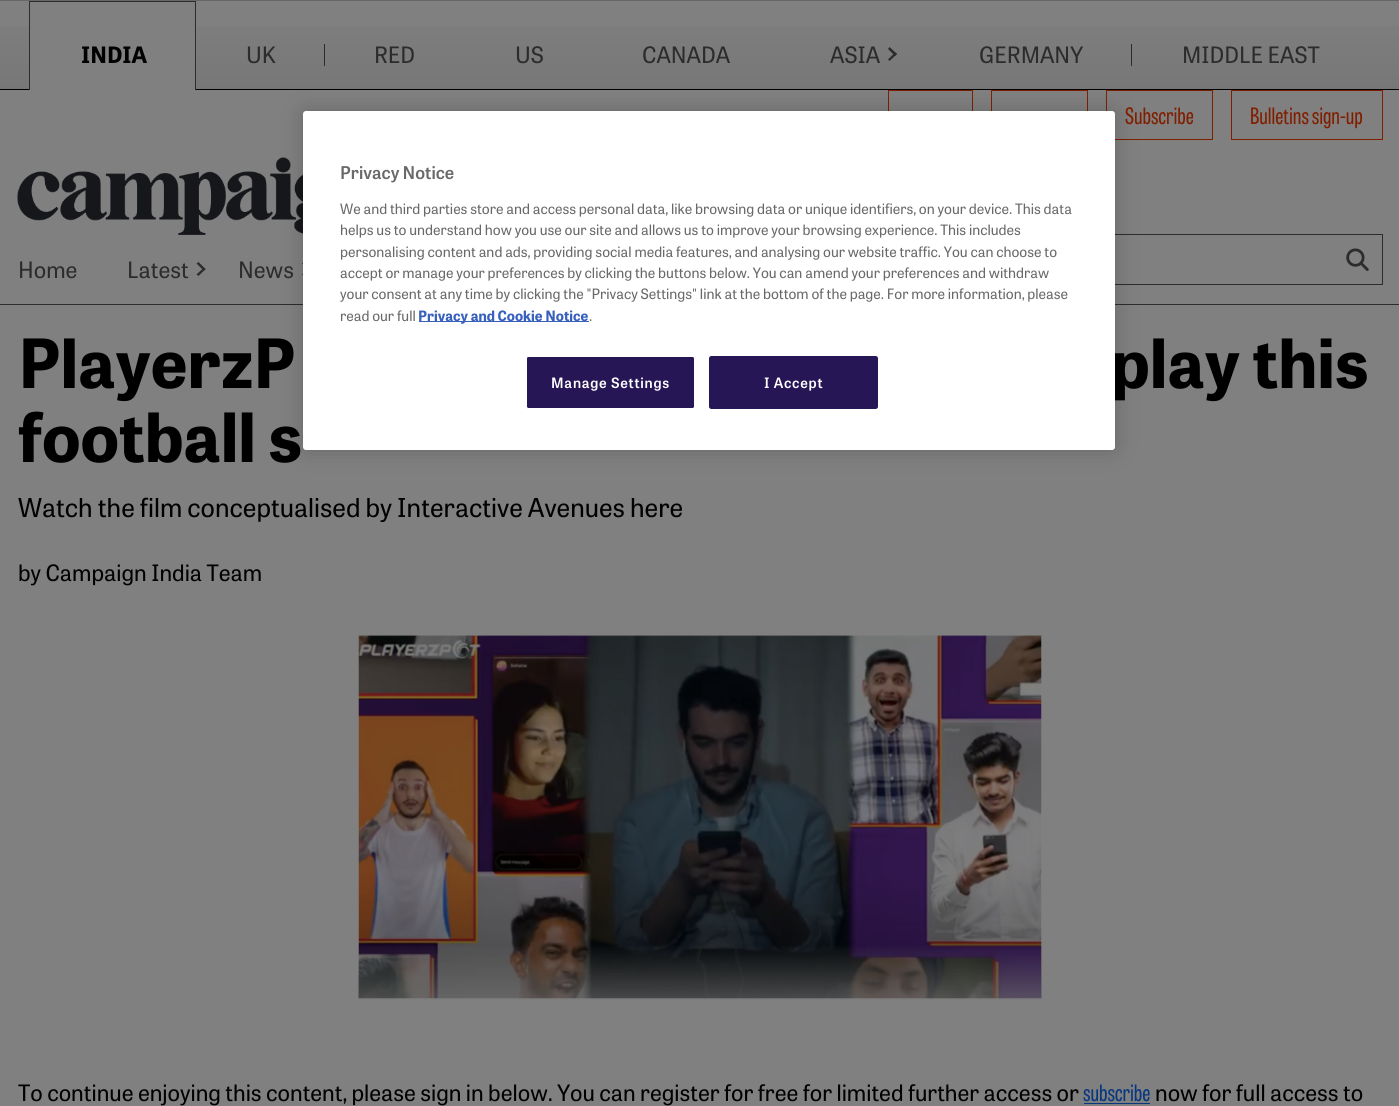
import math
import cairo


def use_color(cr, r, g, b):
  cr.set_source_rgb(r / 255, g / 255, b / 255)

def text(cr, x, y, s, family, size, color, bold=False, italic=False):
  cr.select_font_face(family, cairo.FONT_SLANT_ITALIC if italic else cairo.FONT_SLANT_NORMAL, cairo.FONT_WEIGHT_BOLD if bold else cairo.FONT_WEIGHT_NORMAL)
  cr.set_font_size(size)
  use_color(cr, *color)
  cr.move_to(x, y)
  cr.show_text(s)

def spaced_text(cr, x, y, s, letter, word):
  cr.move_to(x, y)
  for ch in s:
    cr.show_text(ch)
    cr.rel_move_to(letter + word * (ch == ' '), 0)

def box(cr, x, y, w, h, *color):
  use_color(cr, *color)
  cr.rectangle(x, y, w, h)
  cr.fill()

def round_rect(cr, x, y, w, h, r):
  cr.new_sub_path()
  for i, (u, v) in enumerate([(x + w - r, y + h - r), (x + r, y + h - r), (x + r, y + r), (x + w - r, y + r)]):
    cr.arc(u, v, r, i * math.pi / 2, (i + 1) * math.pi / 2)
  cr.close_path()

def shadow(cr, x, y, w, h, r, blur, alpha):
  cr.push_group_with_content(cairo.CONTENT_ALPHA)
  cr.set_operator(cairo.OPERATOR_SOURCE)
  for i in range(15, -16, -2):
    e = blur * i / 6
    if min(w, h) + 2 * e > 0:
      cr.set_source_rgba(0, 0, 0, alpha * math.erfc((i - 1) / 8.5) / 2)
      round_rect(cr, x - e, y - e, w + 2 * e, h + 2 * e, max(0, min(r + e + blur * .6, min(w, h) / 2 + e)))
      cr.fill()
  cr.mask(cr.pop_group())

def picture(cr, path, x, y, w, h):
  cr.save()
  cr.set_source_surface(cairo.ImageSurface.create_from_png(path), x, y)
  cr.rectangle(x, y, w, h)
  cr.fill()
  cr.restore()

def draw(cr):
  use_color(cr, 128, 128, 128)
  cr.paint()
  gradient = cairo.LinearGradient(700, 1.2, 700, 89)
  gradient.add_color_stop_rgba(0, 0.502, 0.502, 0.502, 1)
  gradient.add_color_stop_rgba(1, 0.467, 0.467, 0.467, 1)
  cr.set_source(gradient)
  cr.rectangle(0, 26, 1399, 63)
  cr.fill()
  box(cr, 0, 0, 1399, 1, 102, 102, 102)
  box(cr, 0, 89, 1399, 1, 0, 0, 0)
  box(cr, 30, 26, 165, 64, 128, 128, 128)
  box(cr, 29, 1, 167, 1, 44, 44, 44)
  box(cr, 195, 1, 1, 89, 44, 44, 44)
  box(cr, 29, 1, 1, 89, 44, 44, 44)
  box(cr, 324, 44, 1, 22, 44, 44, 44)
  cr.new_path()
  cr.move_to(888, 49)
  cr.line_to(889.5, 47)
  cr.line_to(897, 54)
  cr.line_to(895, 56)
  cr.close_path()
  cr.fill()
  cr.new_path()
  cr.move_to(888, 59.5)
  cr.line_to(895, 52.5)
  cr.line_to(897, 54)
  cr.line_to(889.5, 61)
  cr.close_path()
  cr.fill()
  box(cr, 1131, 44, 1, 22, 44, 44, 44)
  box(cr, 0, 304, 1399, 1, 44, 44, 44)
  cr.rectangle(888.5, 90.5, 84, 49)
  use_color(cr, 128, 31, 0)
  cr.set_line_width(1)
  cr.stroke()
  cr.rectangle(991.5, 90.5, 96, 49)
  cr.stroke()
  cr.rectangle(1106.5, 90.5, 106, 49)
  cr.stroke()
  cr.rectangle(1231.5, 90.5, 151, 49)
  cr.stroke()
  picture(cr, "img_01.png", 17, 157, 286, 78)
  use_color(cr, 44, 44, 44)
  cr.new_path()
  cr.move_to(196.5, 263.5)
  cr.line_to(198.5, 262)
  cr.line_to(205.5, 269)
  cr.line_to(204, 271)
  cr.close_path()
  cr.fill()
  cr.new_path()
  cr.move_to(196.5, 274.5)
  cr.line_to(204, 267.5)
  cr.line_to(205.5, 269)
  cr.line_to(198.5, 276)
  cr.close_path()
  cr.fill()
  cr.new_path()
  cr.move_to(302, 263.5)
  cr.line_to(304, 262)
  cr.line_to(311, 269)
  cr.line_to(309, 271)
  cr.close_path()
  cr.fill()
  cr.new_path()
  cr.move_to(302, 274.5)
  cr.line_to(309, 267.5)
  cr.line_to(311, 269)
  cr.line_to(304, 276)
  cr.close_path()
  cr.fill()
  cr.rectangle(1016.5, 234.5, 366, 50)
  cr.stroke()
  picture(cr, "img_02.png", 1346, 248, 23, 23)
  picture(cr, "img_03.png", 358, 635, 684, 365)
  gradient = cairo.LinearGradient(700, 944, 700, 1044)
  gradient.add_color_stop_rgba(0, 0.502, 0.502, 0.502, 0)
  gradient.add_color_stop_rgba(1, 0.502, 0.502, 0.502, 1)
  cr.set_source(gradient)
  cr.rectangle(359, 946, 682, 53)
  cr.fill()
  box(cr, 1084, 1103, 66, 1, 7, 55, 127)
  use_color(cr, 0, 0, 0)
  shadow(cr, 303, 111, 812, 339, 3, 11, 0.2)
  text(cr, 81, 63, "INDIA", "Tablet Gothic", 22.5, (0, 0, 0), bold=True)
  text(cr, 246, 63, "UK", "Tablet Gothic", 22.5, (44, 44, 44))
  text(cr, 374, 63, "RED", "Tablet Gothic", 22.5, (44, 44, 44))
  text(cr, 515, 63, "US", "Tablet Gothic", 22.5, (44, 44, 44))
  text(cr, 642, 63, "CANADA", "Tablet Gothic", 22.5, (44, 44, 44))
  text(cr, 830, 63, "ASIA", "Tablet Gothic", 22.5, (44, 44, 44))
  text(cr, 979, 63, "GERMANY", "Tablet Gothic", 22.5, (44, 44, 44))
  text(cr, 1182, 63, "MIDDLE EAST", "Tablet Gothic", 22.5, (44, 44, 44))
  text(cr, 1125, 124, "Subscribe", "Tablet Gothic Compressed", 22.5, (128, 31, 0))
  text(cr, 1250, 124, "Bulletins sign-up", "Tablet Gothic Compressed", 22.5, (128, 31, 0))
  text(cr, 18, 278, "Home", "Tablet Gothic", 22.5, (44, 44, 44))
  text(cr, 127, 278, "Latest", "Tablet Gothic", 22.5, (44, 44, 44))
  text(cr, 238, 278, "News", "Tablet Gothic", 22.5, (44, 44, 44))
  text(cr, 18, 388, "PlayerzP", "Tablet Gothic", 67.5, (0, 0, 0), bold=True)
  text(cr, 1111, 388, "play this", "Tablet Gothic", 67.5, (0, 0, 0), bold=True)
  text(cr, 18, 462, "football s", "Tablet Gothic", 67.5, (0, 0, 0), bold=True)
  text(cr, 18, 517, "Watch the film conceptualised by Interactive Avenues here", "Tablet Gothic", 25.9, (0, 0, 0))
  text(cr, 18, 581, "by Campaign India Team", "Tablet Gothic", 22.5, (0, 0, 0))
  text(cr, 18, 1101, "To continue enjoying this content, please sign in below. You can register for free for limited further access or", "Tablet Gothic", 22.5, (0, 0, 0))
  text(cr, 1083, 1101, "subscribe", "Tablet Gothic Compressed", 22.5, (7, 55, 127))
  text(cr, 1155, 1101, "now for full access to", "Tablet Gothic", 22.5, (0, 0, 0))
  use_color(cr, 255, 255, 255)
  round_rect(cr, 303, 111, 812, 339, 3)
  cr.fill()
  text(cr, 340, 179, "Privacy Notice", "Tablet Gothic SemiBold", 17.5, (105, 105, 105))
  text(cr, 340, 214, "We and third parties store and access personal data, like browsing data or unique identifiers, on your device. This data", "Tablet Gothic", 14.23, (105, 105, 105))
  text(cr, 340, 235, "helps us to understand how you use our site and allows us to improve your browsing experience. This includes", "Tablet Gothic", 14.23, (105, 105, 105))
  text(cr, 340, 257, "personalising content and ads, providing social media features, and analysing our website traffic. You can choose to", "Tablet Gothic", 14.23, (105, 105, 105))
  text(cr, 340, 278, "accept or manage your preferences by clicking the buttons below. You can amend your preferences and withdraw", "Tablet Gothic", 14.23, (105, 105, 105))
  text(cr, 340, 299, "your consent at any time by clicking the \"Privacy Settings\" link at the bottom of the page. For more information, please", "Tablet Gothic", 14.23, (105, 105, 105))
  text(cr, 340, 321, "read our full", "Tablet Gothic", 14.23, (105, 105, 105))
  box(cr, 419, 321, 170, 1, 56, 96, 190)
  text(cr, 418, 321, "Privacy and Cookie Notice", "Tablet Gothic", 14.23, (56, 96, 190), bold=True)
  text(cr, 589, 321, ".", "Tablet Gothic", 14.23, (105, 105, 105))
  use_color(cr, 38, 22, 86)
  round_rect(cr, 526.5, 356.5, 168, 52, 2)
  cr.fill_preserve()
  use_color(cr, 255, 255, 255)
  cr.stroke()
  cr.select_font_face("Tablet Gothic SemiBold")
  spaced_text(cr, 551, 388, "Manage Settings", 0.75, 0)
  use_color(cr, 38, 22, 86)
  round_rect(cr, 709.5, 356.5, 168, 52, 2)
  cr.fill_preserve()
  cr.stroke()
  use_color(cr, 255, 255, 255)
  spaced_text(cr, 764, 388, "I Accept", 0.75, 0)


surface = cairo.ImageSurface(cairo.FORMAT_RGB24, 1399, 1106)
cr = cairo.Context(surface)
options = cairo.FontOptions()
options.set_hint_metrics(cairo.HINT_METRICS_OFF)
options.set_hint_style(cairo.HINT_STYLE_NONE)
cr.set_font_options(options)
cr.set_miter_limit(4)
draw(cr)
surface.write_to_png("out.png")
